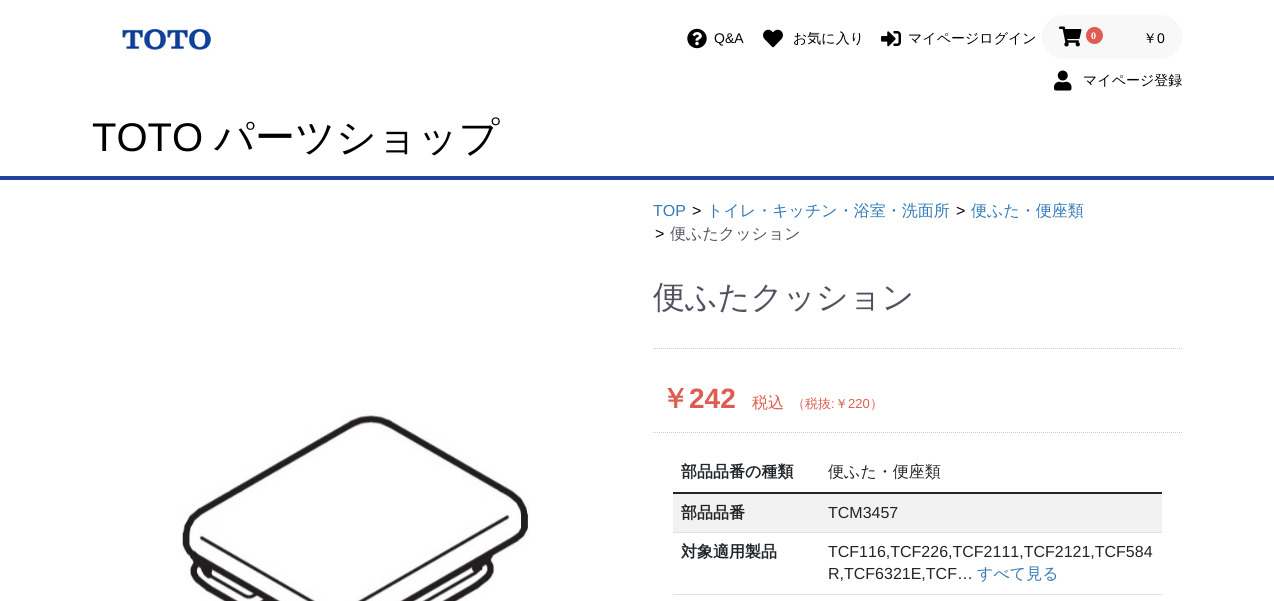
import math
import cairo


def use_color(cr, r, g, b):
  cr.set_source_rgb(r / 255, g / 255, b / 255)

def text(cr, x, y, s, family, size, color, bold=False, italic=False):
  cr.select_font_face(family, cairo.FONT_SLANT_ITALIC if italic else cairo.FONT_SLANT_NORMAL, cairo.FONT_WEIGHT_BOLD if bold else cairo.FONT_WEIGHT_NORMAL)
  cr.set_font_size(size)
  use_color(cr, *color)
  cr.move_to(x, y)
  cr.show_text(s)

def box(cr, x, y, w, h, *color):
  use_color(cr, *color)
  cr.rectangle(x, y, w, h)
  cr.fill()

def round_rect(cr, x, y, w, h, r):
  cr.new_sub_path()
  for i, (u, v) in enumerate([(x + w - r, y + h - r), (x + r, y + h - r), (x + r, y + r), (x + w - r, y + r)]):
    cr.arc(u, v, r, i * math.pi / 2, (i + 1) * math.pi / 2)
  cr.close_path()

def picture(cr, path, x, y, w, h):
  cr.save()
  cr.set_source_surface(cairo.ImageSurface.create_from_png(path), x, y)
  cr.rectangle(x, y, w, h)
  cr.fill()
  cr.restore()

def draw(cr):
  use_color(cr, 255, 255, 255)
  cr.paint()
  box(cr, 0, 176, 1274, 4, 34, 67, 156)
  picture(cr, "img_01.png", 122, 29, 89, 21)
  picture(cr, "img_02.png", 687, 28, 20, 21)
  picture(cr, "img_03.png", 763, 29, 20, 19)
  picture(cr, "img_04.png", 881, 31, 20, 16)
  use_color(cr, 248, 248, 248)
  round_rect(cr, 1042, 15, 140, 44, 22)
  cr.fill()
  picture(cr, "img_05.png", 1059, 26, 23, 21)
  use_color(cr, 222, 93, 80)
  cr.arc(1094.5, 35.5, 8.5, 0, 2 * math.pi)
  cr.fill()
  picture(cr, "img_06.png", 1054, 70, 18, 21)
  picture(cr, "img_07.png", 181, 414, 348, 187)
  cr.new_path()
  cr.move_to(653, 348.5)
  cr.line_to(1182, 348.5)
  use_color(cr, 204, 204, 204)
  cr.set_line_width(1)
  cr.set_dash([1, 1])
  cr.stroke()
  cr.new_path()
  cr.move_to(653, 432.5)
  cr.line_to(1182, 432.5)
  cr.stroke()
  box(cr, 673, 492, 489, 2, 33, 37, 41)
  box(cr, 673, 494, 489, 38, 242, 242, 242)
  box(cr, 673, 532, 489, 1, 222, 226, 230)
  box(cr, 673, 594, 489, 1, 222, 226, 230)
  text(cr, 714, 43, "Q&A", "Liberation Sans", 14, (0, 0, 0))
  text(cr, 793, 43, "お気に入り", "WenQuanYi Zen Hei Medium", 14, (0, 0, 0))
  text(cr, 908, 43, "マイページログイン", "WenQuanYi Zen Hei Medium", 14, (0, 0, 0))
  text(cr, 1091, 39, "0", "Liberation Serif", 10, (255, 255, 255), bold=True)
  text(cr, 1143, 43, "￥", "WenQuanYi Zen Hei Medium", 14, (0, 0, 0))
  text(cr, 1157, 43, "0", "Liberation Sans", 14, (0, 0, 0))
  text(cr, 1083, 85, "マイページ登録", "WenQuanYi Zen Hei Medium", 14, (0, 0, 0))
  text(cr, 92, 151, "TOTO", "Liberation Sans", 40, (0, 0, 0))
  text(cr, 214, 151, "パーツショップ", "WenQuanYi Zen Hei Medium", 40, (0, 0, 0))
  text(cr, 653, 216, "TOP", "Liberation Sans", 16, (51, 122, 183))
  text(cr, 692, 216, ">", "Liberation Sans", 16, (0, 0, 0))
  text(cr, 707, 216, "トイレ・キッチン・浴室・洗面所", "WenQuanYi Zen Hei Medium", 16, (51, 122, 183))
  text(cr, 956, 216, ">", "Liberation Sans", 16, (0, 0, 0))
  text(cr, 971, 216, "便ふた・便座類", "WenQuanYi Zen Hei Medium", 16, (51, 122, 183))
  text(cr, 655, 239, ">", "Liberation Sans", 16, (0, 0, 0))
  text(cr, 670, 239, "便ふたクッション", "WenQuanYi Zen Hei Medium", 16, (82, 82, 99))
  text(cr, 653, 308, "便ふたクッション", "WenQuanYi Zen Hei Medium", 32, (82, 82, 99))
  text(cr, 661, 408, "￥", "WenQuanYi Zen Hei", 28, (222, 93, 80), bold=True)
  text(cr, 689, 408, "242", "Liberation Sans", 28, (222, 93, 80), bold=True)
  text(cr, 752, 408, "税込", "WenQuanYi Zen Hei Medium", 16, (222, 93, 80))
  text(cr, 792, 408, "（税抜 ￥", "WenQuanYi Zen Hei Medium", 13, (222, 93, 80))
  text(cr, 848, 408, "220", "Liberation Sans", 13, (222, 93, 80))
  text(cr, 870, 408, "）", "WenQuanYi Zen Hei Medium", 13, (222, 93, 80))
  text(cr, 831, 408, ":", "Liberation Sans", 13, (222, 93, 80))
  text(cr, 681, 477, "部品品番の種類", "WenQuanYi Zen Hei", 16, (33, 37, 41), bold=True)
  text(cr, 828, 477, "便ふた・便座類", "WenQuanYi Zen Hei Medium", 16, (33, 37, 41))
  text(cr, 681, 518, "部品品番", "WenQuanYi Zen Hei", 16, (33, 37, 41), bold=True)
  text(cr, 828, 518, "TCM3457", "Liberation Sans", 16, (33, 37, 41))
  text(cr, 681, 557, "対象適用製品", "WenQuanYi Zen Hei", 16, (33, 37, 41), bold=True)
  text(cr, 828, 557, "TCF116,TCF226,TCF2111,TCF2121,TCF584", "Liberation Sans", 16, (33, 37, 41))
  text(cr, 828, 579, "R,TCF6321E,TCF…", "Liberation Sans", 16, (33, 37, 41))
  text(cr, 977, 579, "すべて見る", "WenQuanYi Zen Hei Medium", 16, (51, 122, 183))


surface = cairo.ImageSurface(cairo.FORMAT_RGB24, 1274, 601)
cr = cairo.Context(surface)
options = cairo.FontOptions()
options.set_hint_metrics(cairo.HINT_METRICS_OFF)
options.set_hint_style(cairo.HINT_STYLE_NONE)
cr.set_font_options(options)
cr.set_miter_limit(4)
draw(cr)
surface.write_to_png("out.png")
